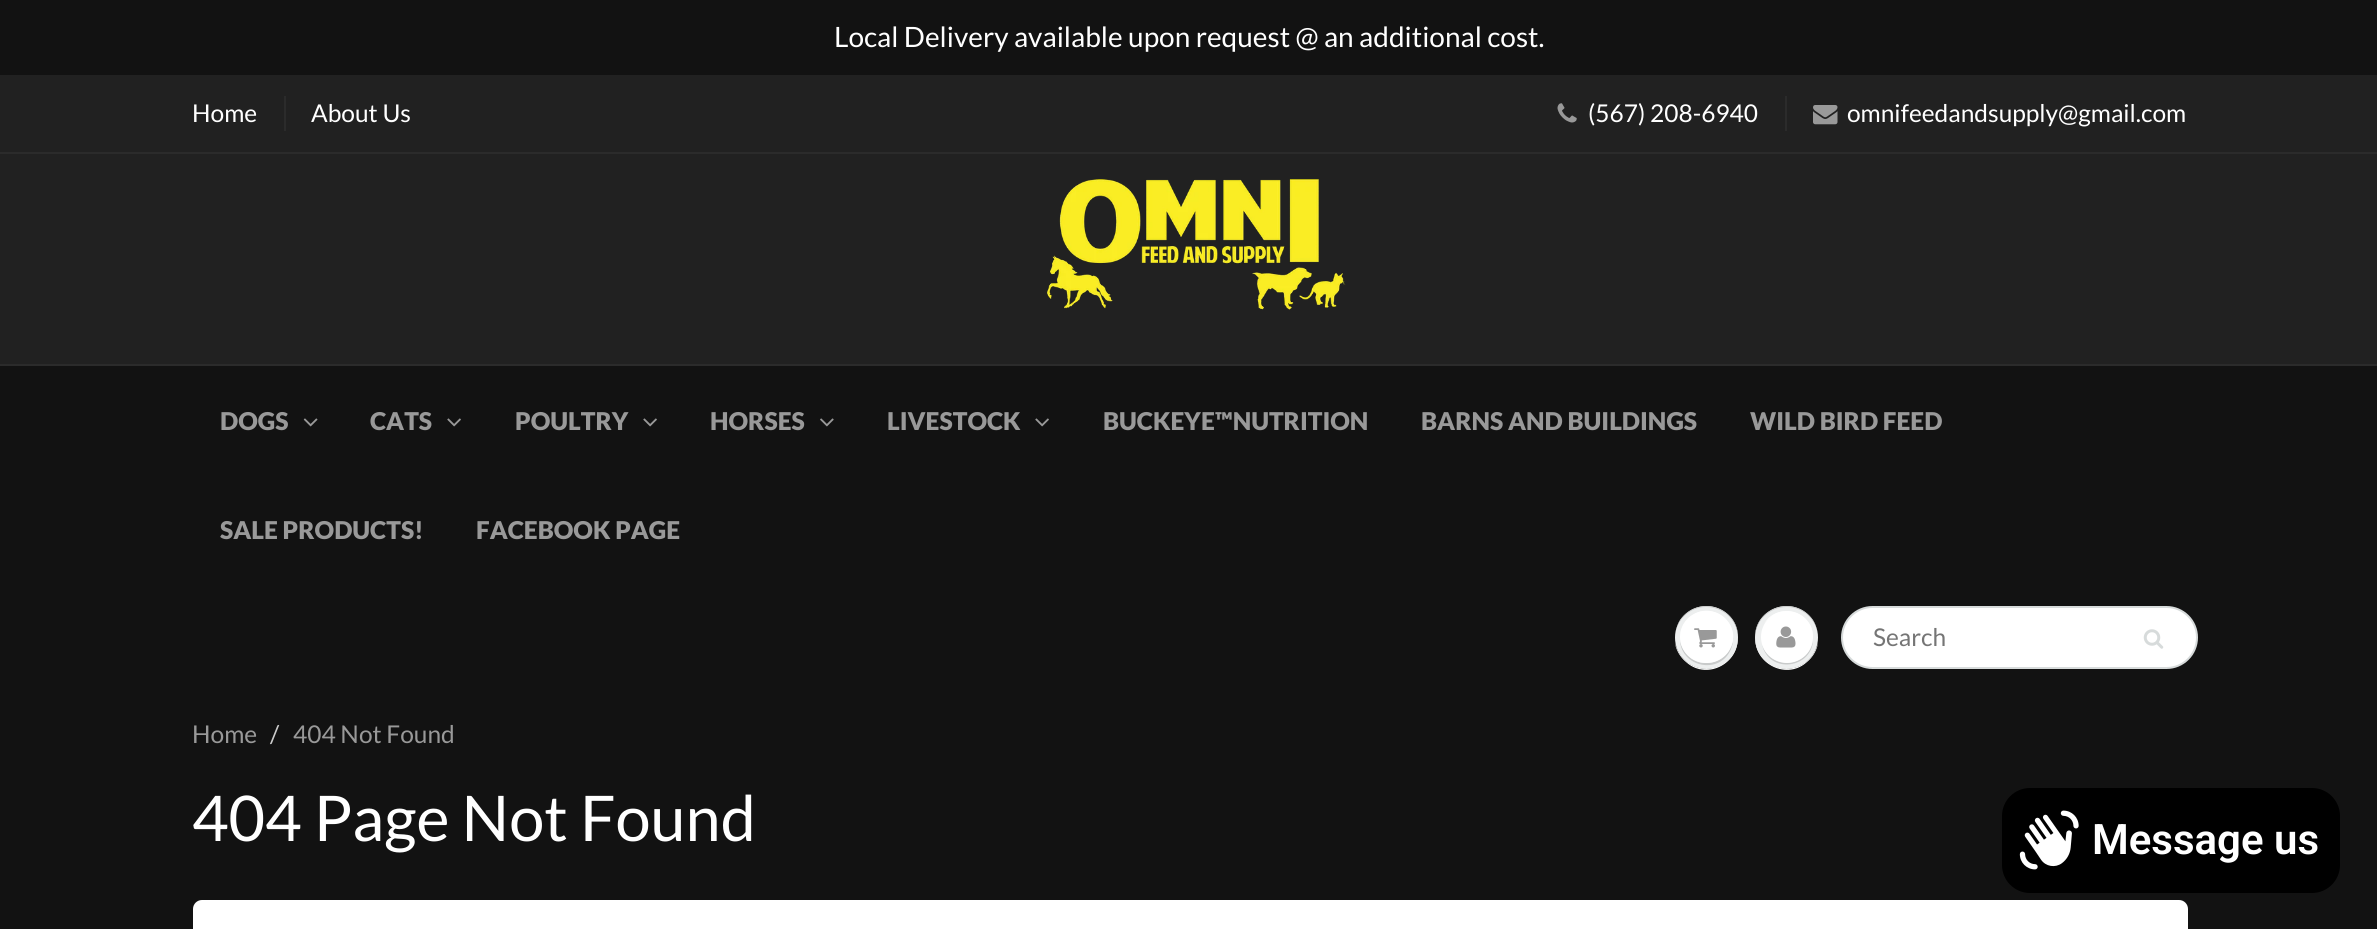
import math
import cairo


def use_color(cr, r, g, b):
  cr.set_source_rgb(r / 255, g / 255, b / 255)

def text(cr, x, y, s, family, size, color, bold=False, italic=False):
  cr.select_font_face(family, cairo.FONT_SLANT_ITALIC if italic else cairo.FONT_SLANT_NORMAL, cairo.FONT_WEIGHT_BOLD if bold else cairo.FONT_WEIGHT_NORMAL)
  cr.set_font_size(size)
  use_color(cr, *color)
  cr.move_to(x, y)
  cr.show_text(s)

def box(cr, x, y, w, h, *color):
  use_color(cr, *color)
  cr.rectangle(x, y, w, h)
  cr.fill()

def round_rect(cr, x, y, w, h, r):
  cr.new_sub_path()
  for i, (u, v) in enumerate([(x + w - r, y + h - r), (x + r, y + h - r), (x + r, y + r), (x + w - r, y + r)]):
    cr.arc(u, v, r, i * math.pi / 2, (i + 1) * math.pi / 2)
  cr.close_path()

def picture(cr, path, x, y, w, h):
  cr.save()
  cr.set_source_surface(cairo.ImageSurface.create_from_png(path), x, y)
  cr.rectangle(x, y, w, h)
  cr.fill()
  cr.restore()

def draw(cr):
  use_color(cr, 18, 18, 18)
  cr.paint()
  box(cr, 0, 75, 2377, 77, 33, 33, 33)
  box(cr, 284, 96, 2, 35, 43, 43, 43)
  picture(cr, "img_01.png", 1557, 103, 20, 20)
  box(cr, 1785, 96, 2, 35, 43, 43, 43)
  picture(cr, "img_02.png", 1813, 105, 25, 20)
  box(cr, 0, 154, 2377, 210, 33, 33, 33)
  box(cr, 0, 152, 2377, 2, 43, 43, 43)
  picture(cr, "img_03.png", 1047, 179, 299, 131)
  box(cr, 0, 364, 2377, 2, 43, 43, 43)
  picture(cr, "img_04.png", 303, 418, 15, 9)
  picture(cr, "img_05.png", 447, 418, 14, 9)
  picture(cr, "img_05.png", 643, 418, 14, 9)
  picture(cr, "img_06.png", 820, 418, 14, 9)
  picture(cr, "img_05.png", 1035, 418, 14, 9)
  use_color(cr, 255, 255, 255)
  cr.new_path()
  cr.move_to(1675, 643)
  cr.curve_to(1676, 650, 1680, 657, 1686, 662)
  cr.curve_to(1708, 682, 1743, 661, 1737, 633)
  cr.curve_to(1741, 661, 1708, 680, 1686, 661)
  cr.curve_to(1681, 657, 1677, 650, 1675, 643)
  cr.close_path()
  cr.fill()
  use_color(cr, 237, 239, 239)
  cr.arc(1706.5, 637.5, 31.5, 0, 2 * math.pi)
  cr.fill()
  use_color(cr, 201, 203, 203)
  cr.new_path()
  cr.move_to(1706, 607)
  cr.curve_to(1724, 607, 1738, 621, 1738, 638)
  cr.curve_to(1739, 607, 1698, 594, 1680, 620)
  cr.curve_to(1677, 625, 1675, 632, 1675, 638)
  cr.curve_to(1675, 621, 1689, 607, 1706, 607)
  cr.close_path()
  cr.fill()
  cr.new_path()
  cr.move_to(1680, 638)
  cr.curve_to(1679, 667, 1720, 676, 1731, 649)
  cr.curve_to(1733, 644, 1734, 637, 1732, 632)
  cr.curve_to(1738, 659, 1701, 675, 1685, 652)
  cr.curve_to(1682, 648, 1680, 643, 1680, 638)
  cr.close_path()
  cr.fill()
  use_color(cr, 255, 255, 255)
  round_rect(cr, 1680, 611, 53, 52, 26)
  cr.fill()
  cr.new_path()
  cr.move_to(1706, 612)
  cr.curve_to(1725, 612, 1737, 633, 1730, 649)
  cr.curve_to(1744, 623, 1709, 597, 1688, 619)
  cr.curve_to(1683, 624, 1680, 631, 1680, 638)
  cr.curve_to(1681, 623, 1692, 612, 1706, 612)
  cr.close_path()
  cr.fill()
  picture(cr, "img_07.png", 1694, 628, 23, 20)
  cr.new_path()
  cr.move_to(1756, 633)
  cr.curve_to(1750, 661, 1785, 682, 1807, 662)
  cr.curve_to(1813, 657, 1817, 650, 1818, 643)
  cr.curve_to(1816, 650, 1812, 657, 1807, 661)
  cr.curve_to(1785, 680, 1752, 661, 1756, 633)
  cr.close_path()
  cr.fill()
  use_color(cr, 237, 239, 239)
  cr.arc(1786.5, 637.5, 31.5, 0, 2 * math.pi)
  cr.fill()
  use_color(cr, 201, 203, 203)
  cr.new_path()
  cr.move_to(1787, 607)
  cr.curve_to(1804, 607, 1818, 621, 1818, 638)
  cr.curve_to(1818, 632, 1816, 625, 1813, 620)
  cr.curve_to(1795, 594, 1754, 607, 1755, 638)
  cr.curve_to(1755, 621, 1769, 607, 1787, 607)
  cr.close_path()
  cr.move_to(1762, 644)
  cr.curve_to(1768, 675, 1814, 669, 1813, 638)
  cr.curve_to(1812, 667, 1770, 672, 1762, 644)
  cr.close_path()
  cr.fill()
  use_color(cr, 255, 255, 255)
  cr.arc(1787, 637, 26, 0, 2 * math.pi)
  cr.fill()
  cr.new_path()
  cr.move_to(1787, 612)
  cr.curve_to(1801, 612, 1812, 623, 1813, 638)
  cr.curve_to(1814, 611, 1777, 601, 1764, 624)
  cr.curve_to(1769, 617, 1777, 612, 1787, 612)
  cr.close_path()
  cr.fill()
  picture(cr, "img_08.png", 1776, 626, 20, 22)
  round_rect(cr, 1842, 607, 355, 61, 30.5)
  cr.fill_preserve()
  use_color(cr, 215, 219, 219)
  cr.stroke()
  picture(cr, "img_09.png", 2143, 629, 21, 20)
  use_color(cr, 255, 255, 255)
  round_rect(cr, 193, 900, 1995, 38, 9)
  cr.fill()
  use_color(cr, 0, 0, 0)
  round_rect(cr, 2002, 788, 338, 105, 28)
  cr.fill()
  picture(cr, "img_10.png", 2019, 810, 60, 60)
  text(cr, 834, 47, "Local Delivery available upon request @ an additional cost.", "Lato", 28, (255, 255, 255))
  text(cr, 192, 122, "Home", "Lato", 24.5, (255, 255, 255))
  text(cr, 311, 122, "About Us", "Lato", 24.5, (255, 255, 255))
  text(cr, 1588, 122, "(567) 208-6940", "Lato", 24.5, (255, 255, 255))
  text(cr, 1847, 122, "omnifeedandsupply@gmail.com", "Lato", 24.5, (255, 255, 255))
  text(cr, 220, 430, "DOGS", "Lato Black", 24.5, (153, 153, 153))
  text(cr, 370, 430, "CATS", "Lato Black", 24.5, (153, 153, 153))
  text(cr, 515, 430, "POULTRY", "Lato Black", 24.5, (153, 153, 153))
  text(cr, 710, 430, "HORSES", "Lato Black", 24.5, (153, 153, 153))
  text(cr, 887, 430, "LIVESTOCK", "Lato Black", 24.5, (153, 153, 153))
  text(cr, 1103, 430, "BUCKEYE™NUTRITION", "Lato Black", 24.5, (153, 153, 153))
  text(cr, 1421, 430, "BARNS AND BUILDINGS", "Lato Black", 24.5, (153, 153, 153))
  text(cr, 1750, 430, "WILD BIRD FEED", "Lato Black", 24.5, (153, 153, 153))
  text(cr, 220, 539, "SALE PRODUCTS!", "Lato Black", 24.5, (153, 153, 153))
  text(cr, 476, 539, "FACEBOOK PAGE", "Lato Black", 24.5, (153, 153, 153))
  text(cr, 1873, 646, "Search", "Lato", 24.5, (117, 117, 117))
  text(cr, 192, 743, "Home", "Lato", 24.5, (153, 153, 153))
  text(cr, 270, 743, "/", "Lato", 24.5, (204, 204, 204))
  text(cr, 293, 743, "404 Not Found", "Lato", 24.5, (153, 153, 153))
  text(cr, 192, 841, "404 Page Not Found", "Lato", 63, (255, 255, 255))
  text(cr, 2092, 854, "Message us", "Roboto SemiBold", 42, (255, 255, 255))


surface = cairo.ImageSurface(cairo.FORMAT_RGB24, 2377, 929)
cr = cairo.Context(surface)
options = cairo.FontOptions()
options.set_hint_metrics(cairo.HINT_METRICS_OFF)
options.set_hint_style(cairo.HINT_STYLE_NONE)
cr.set_font_options(options)
cr.set_miter_limit(4)
draw(cr)
surface.write_to_png("out.png")
